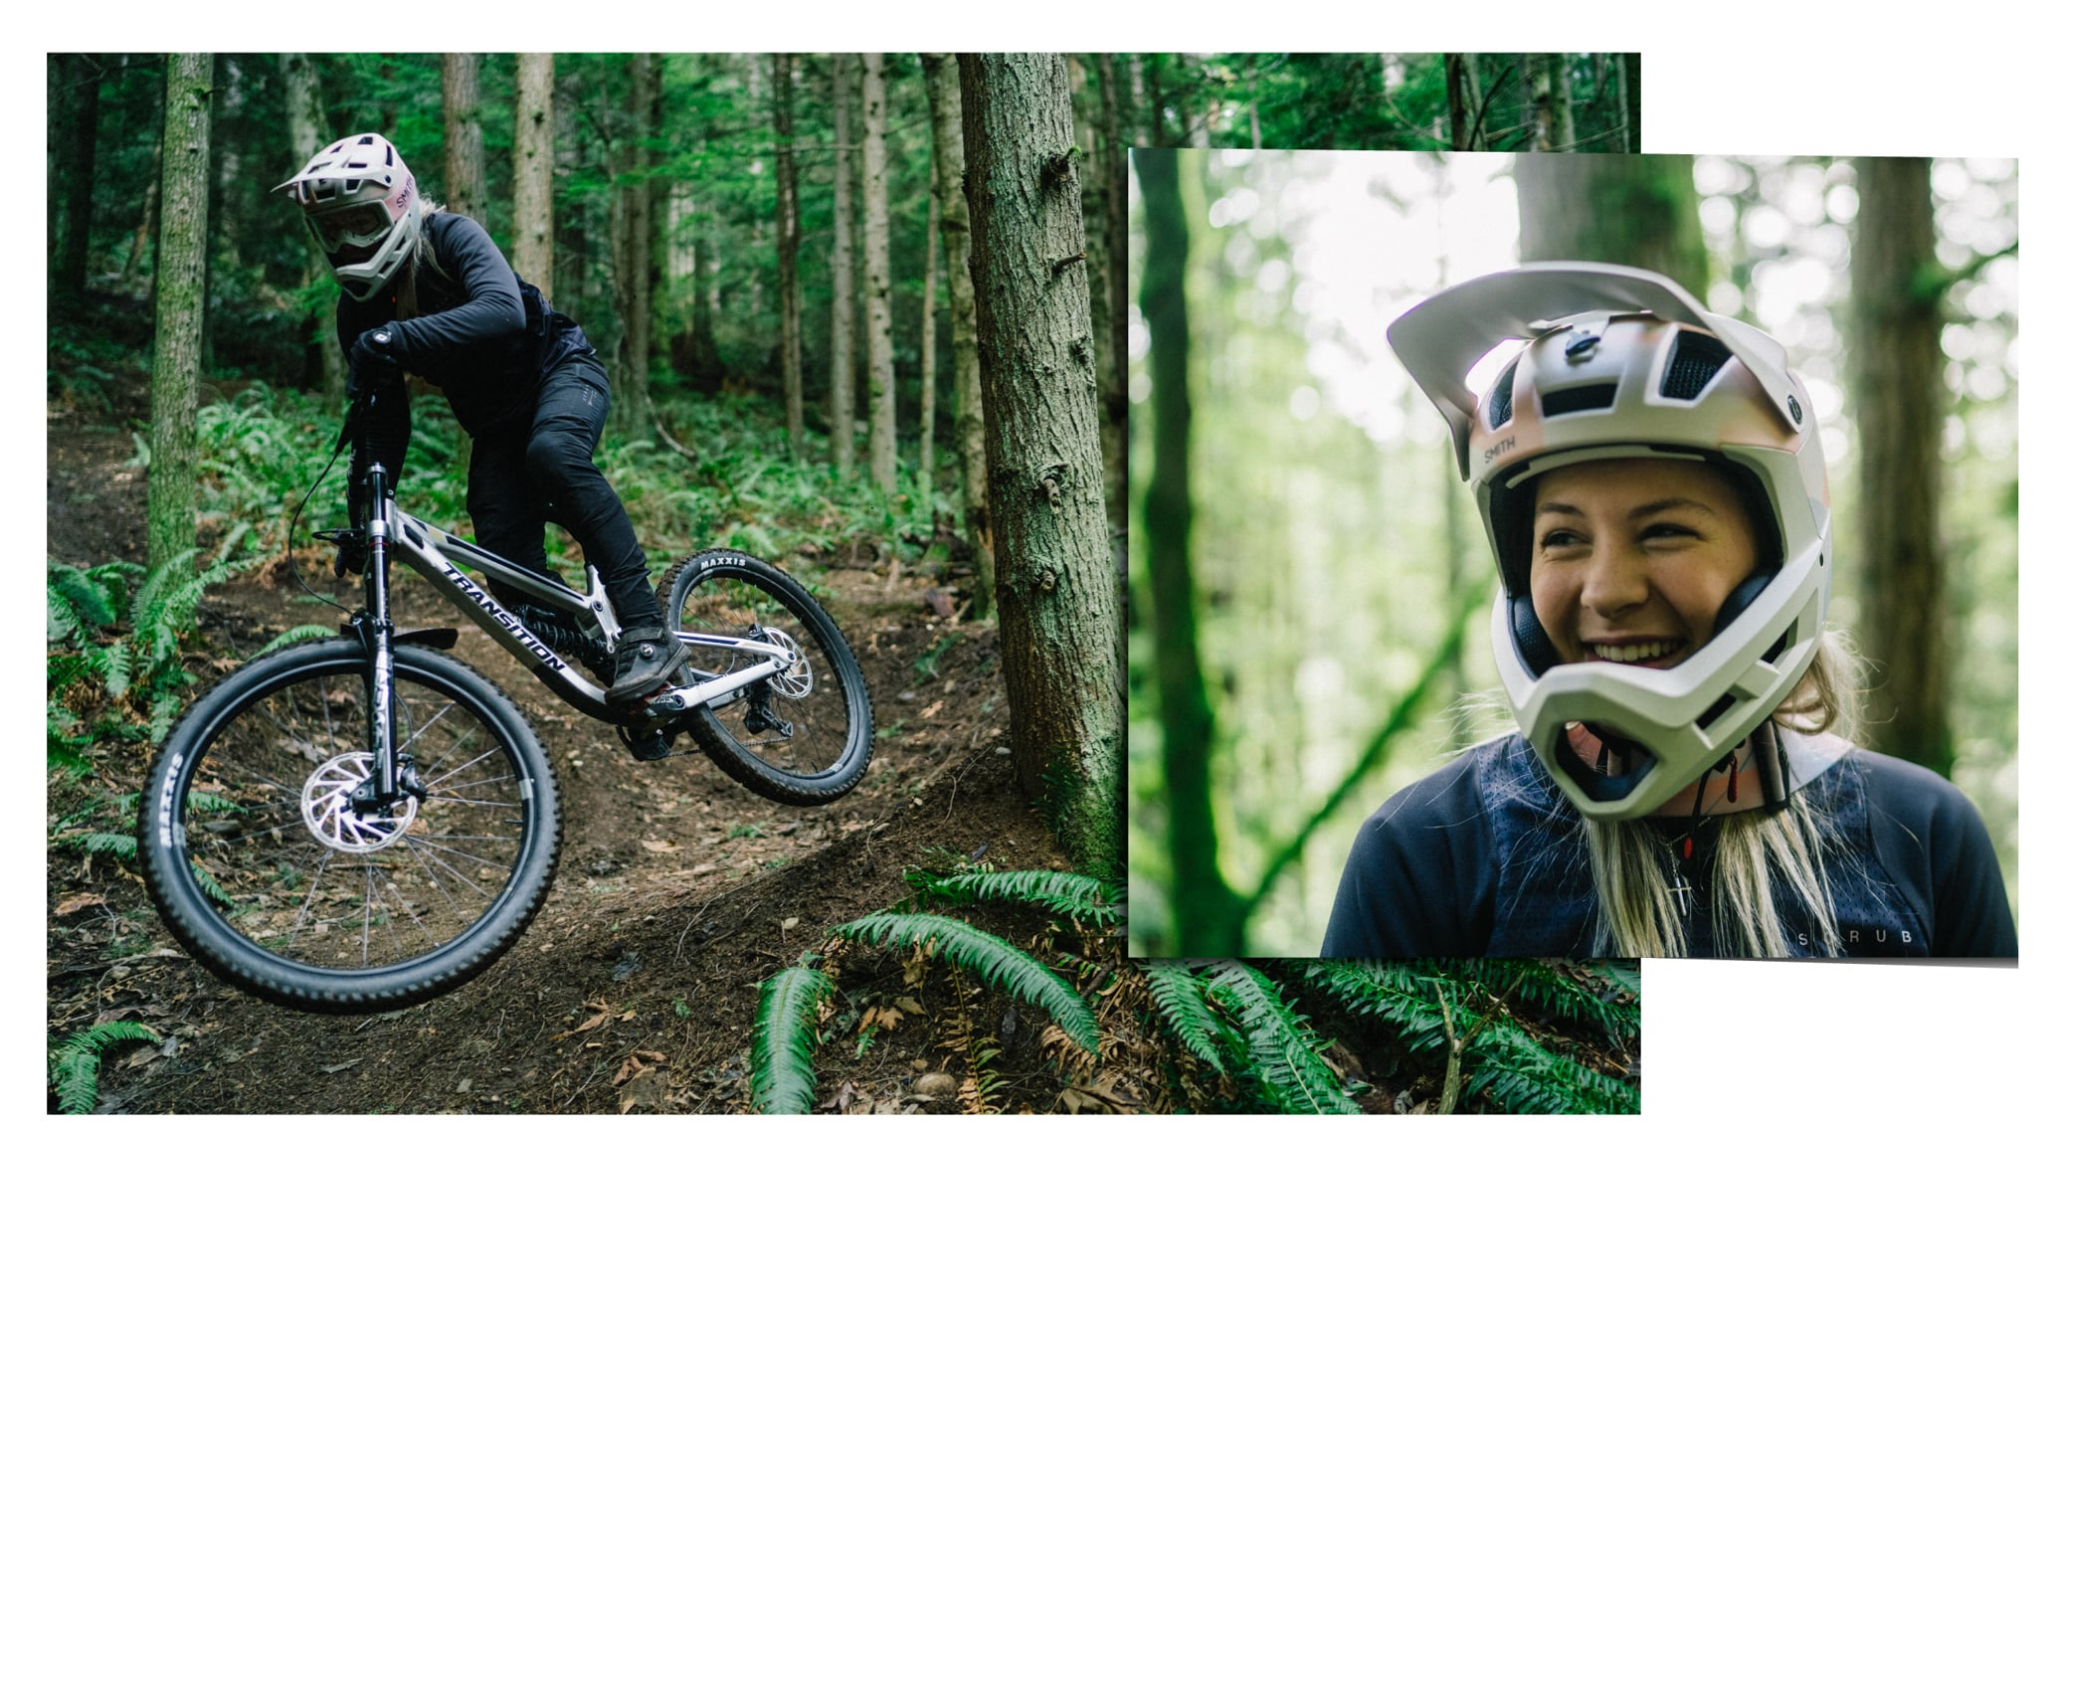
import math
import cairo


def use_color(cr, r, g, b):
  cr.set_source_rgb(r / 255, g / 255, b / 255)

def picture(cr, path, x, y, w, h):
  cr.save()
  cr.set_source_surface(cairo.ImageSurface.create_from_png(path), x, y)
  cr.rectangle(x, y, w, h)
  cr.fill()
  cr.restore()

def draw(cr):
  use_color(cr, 255, 255, 255)
  cr.paint()
  picture(cr, "img_01.png", 40, 48, 1981, 1076)


surface = cairo.ImageSurface(cairo.FORMAT_RGB24, 2088, 1695)
cr = cairo.Context(surface)
options = cairo.FontOptions()
options.set_hint_metrics(cairo.HINT_METRICS_OFF)
options.set_hint_style(cairo.HINT_STYLE_NONE)
cr.set_font_options(options)
cr.set_miter_limit(4)
draw(cr)
surface.write_to_png("out.png")
